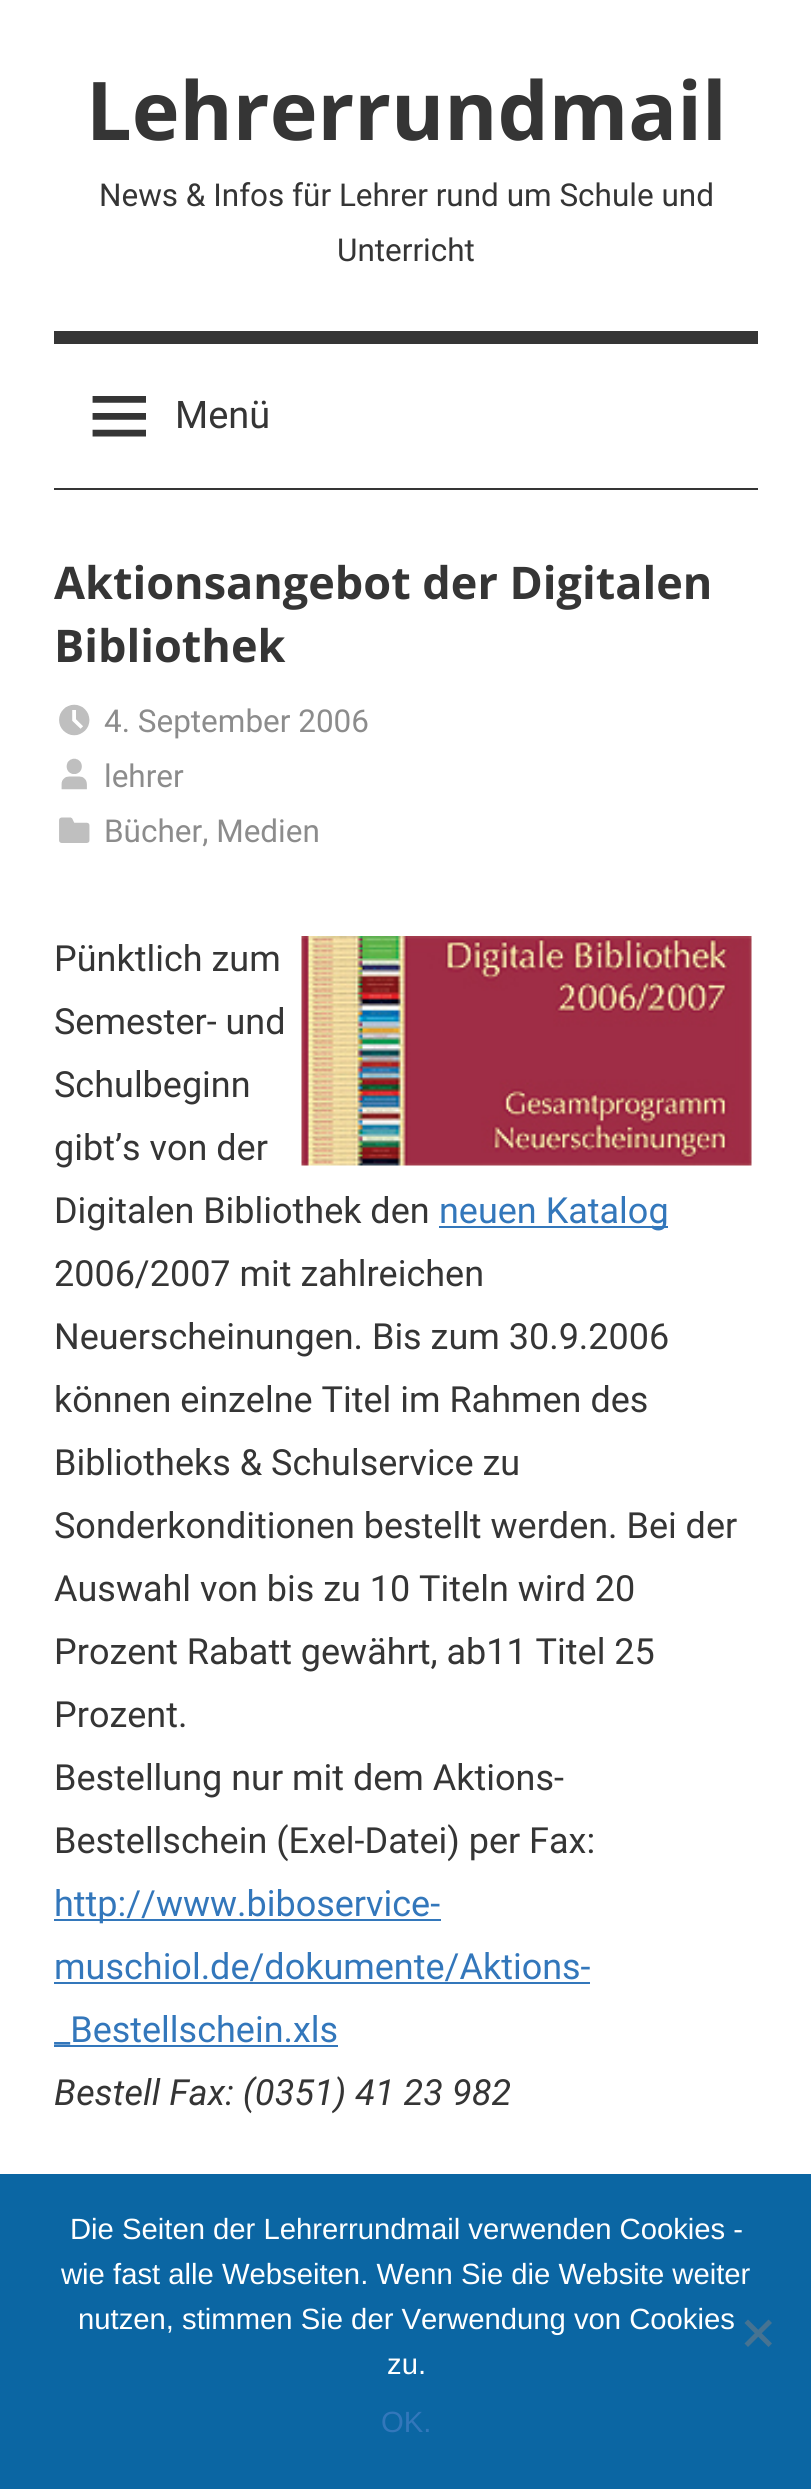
import math
import cairo


def use_color(cr, r, g, b):
  cr.set_source_rgb(r / 255, g / 255, b / 255)

def text(cr, x, y, s, family, size, color, bold=False, italic=False):
  cr.select_font_face(family, cairo.FONT_SLANT_ITALIC if italic else cairo.FONT_SLANT_NORMAL, cairo.FONT_WEIGHT_BOLD if bold else cairo.FONT_WEIGHT_NORMAL)
  cr.set_font_size(size)
  use_color(cr, *color)
  cr.move_to(x, y)
  cr.show_text(s)

def box(cr, x, y, w, h, *color):
  use_color(cr, *color)
  cr.rectangle(x, y, w, h)
  cr.fill()

def picture(cr, path, x, y, w, h):
  cr.save()
  cr.set_source_surface(cairo.ImageSurface.create_from_png(path), x, y)
  cr.rectangle(x, y, w, h)
  cr.fill()
  cr.restore()

def draw(cr):
  use_color(cr, 255, 255, 255)
  cr.paint()
  box(cr, 54, 331, 704, 13, 53, 53, 53)
  box(cr, 54, 488, 704, 2, 53, 53, 53)
  picture(cr, "img_01.png", 92, 396, 54, 41)
  picture(cr, "img_02.png", 59, 704, 31, 32)
  picture(cr, "img_03.png", 61, 758, 26, 32)
  picture(cr, "img_04.png", 59, 817, 31, 26)
  picture(cr, "img_05.png", 301, 936, 451, 230)
  box(cr, 439, 1226, 229, 2, 51, 119, 187)
  box(cr, 54, 1919, 387, 2, 51, 119, 187)
  box(cr, 54, 1982, 536, 2, 51, 119, 187)
  box(cr, 54, 2045, 284, 2, 51, 119, 187)
  box(cr, 0, 2174, 811, 315, 11, 102, 163)
  use_color(cr, 70, 115, 146)
  cr.new_path()
  cr.move_to(768.5, 2319.5)
  cr.line_to(772, 2323)
  cr.line_to(748, 2347)
  cr.line_to(744.5, 2343.5)
  cr.close_path()
  cr.fill()
  cr.new_path()
  cr.move_to(744.5, 2323)
  cr.line_to(748, 2319.5)
  cr.line_to(772, 2343.5)
  cr.line_to(768.5, 2347)
  cr.close_path()
  cr.fill()
  text(cr, 86, 140, "Lehrerrundmail", "Open Sans", 81, (53, 53, 53), bold=True)
  text(cr, 99, 206, "News & Infos für Lehrer rund um Schule und", "Roboto", 31.5, (53, 53, 53))
  text(cr, 337, 261, "Unterricht", "Roboto", 31.5, (53, 53, 53))
  text(cr, 175, 428, "Menü", "Roboto", 38, (53, 53, 53))
  text(cr, 54, 599, "Aktionsangebot der Digitalen", "Open Sans", 45, (53, 53, 53), bold=True)
  text(cr, 54, 662, "Bibliothek", "Open Sans", 45, (53, 53, 53), bold=True)
  text(cr, 104, 732, "4. September 2006", "Roboto", 31.5, (140, 140, 140))
  text(cr, 104, 787, "lehrer", "Roboto", 31.5, (140, 140, 140))
  text(cr, 104, 842, "Bücher, Medien", "Roboto", 31.5, (140, 140, 140))
  text(cr, 54, 971, "Pünktlich zum", "Roboto", 36, (53, 53, 53))
  text(cr, 54, 1034, "Semester- und", "Roboto", 36, (53, 53, 53))
  text(cr, 54, 1097, "Schulbeginn", "Roboto", 36, (53, 53, 53))
  text(cr, 54, 1160, "gibt’s von der", "Roboto", 36, (53, 53, 53))
  text(cr, 54, 1223, "Digitalen Bibliothek den", "Roboto", 36, (53, 53, 53))
  text(cr, 439, 1223, "neuen Katalog", "Roboto", 36, (51, 119, 187))
  text(cr, 54, 1286, "2006/2007 mit zahlreichen", "Roboto", 36, (53, 53, 53))
  text(cr, 54, 1349, "Neuerscheinungen. Bis zum 30.9.2006", "Roboto", 36, (53, 53, 53))
  text(cr, 54, 1412, "können einzelne Titel im Rahmen des", "Roboto", 36, (53, 53, 53))
  text(cr, 54, 1475, "Bibliotheks & Schulservice zu", "Roboto", 36, (53, 53, 53))
  text(cr, 54, 1538, "Sonderkonditionen bestellt werden. Bei der", "Roboto", 36, (53, 53, 53))
  text(cr, 54, 1601, "Auswahl von bis zu 10 Titeln wird 20", "Roboto", 36, (53, 53, 53))
  text(cr, 54, 1664, "Prozent Rabatt gewährt, ab11 Titel 25", "Roboto", 36, (53, 53, 53))
  text(cr, 54, 1727, "Prozent.", "Roboto", 36, (53, 53, 53))
  text(cr, 54, 1790, "Bestellung nur mit dem Aktions-", "Roboto", 36, (53, 53, 53))
  text(cr, 54, 1853, "Bestellschein (Exel-Datei) per Fax:", "Roboto", 36, (53, 53, 53))
  text(cr, 54, 1916, "http://www.biboservice-", "Roboto", 36, (51, 119, 187))
  text(cr, 54, 1979, "muschiol.de/dokumente/Aktions-", "Roboto", 36, (51, 119, 187))
  text(cr, 54, 2042, "_Bestellschein.xls", "Roboto", 36, (51, 119, 187))
  text(cr, 54, 2105, "Bestell Fax: (0351) 41 23 982", "Roboto", 36, (53, 53, 53), italic=True)
  text(cr, 70, 2239, "Die Seiten der Lehrerrundmail verwenden Cookies -", "Liberation Sans", 29.25, (255, 255, 255))
  text(cr, 61, 2284, "wie fast alle Webseiten. Wenn Sie die Website weiter", "Liberation Sans", 29.25, (255, 255, 255))
  text(cr, 78, 2329, "nutzen, stimmen Sie der Verwendung von Cookies", "Liberation Sans", 29.25, (255, 255, 255))
  text(cr, 387, 2374, "zu.", "Liberation Sans", 29.25, (255, 255, 255))
  text(cr, 381, 2432, "OK.", "Liberation Sans", 29.25, (51, 119, 187))


surface = cairo.ImageSurface(cairo.FORMAT_RGB24, 811, 2489)
cr = cairo.Context(surface)
options = cairo.FontOptions()
options.set_hint_metrics(cairo.HINT_METRICS_OFF)
options.set_hint_style(cairo.HINT_STYLE_NONE)
cr.set_font_options(options)
cr.set_miter_limit(4)
draw(cr)
surface.write_to_png("out.png")
